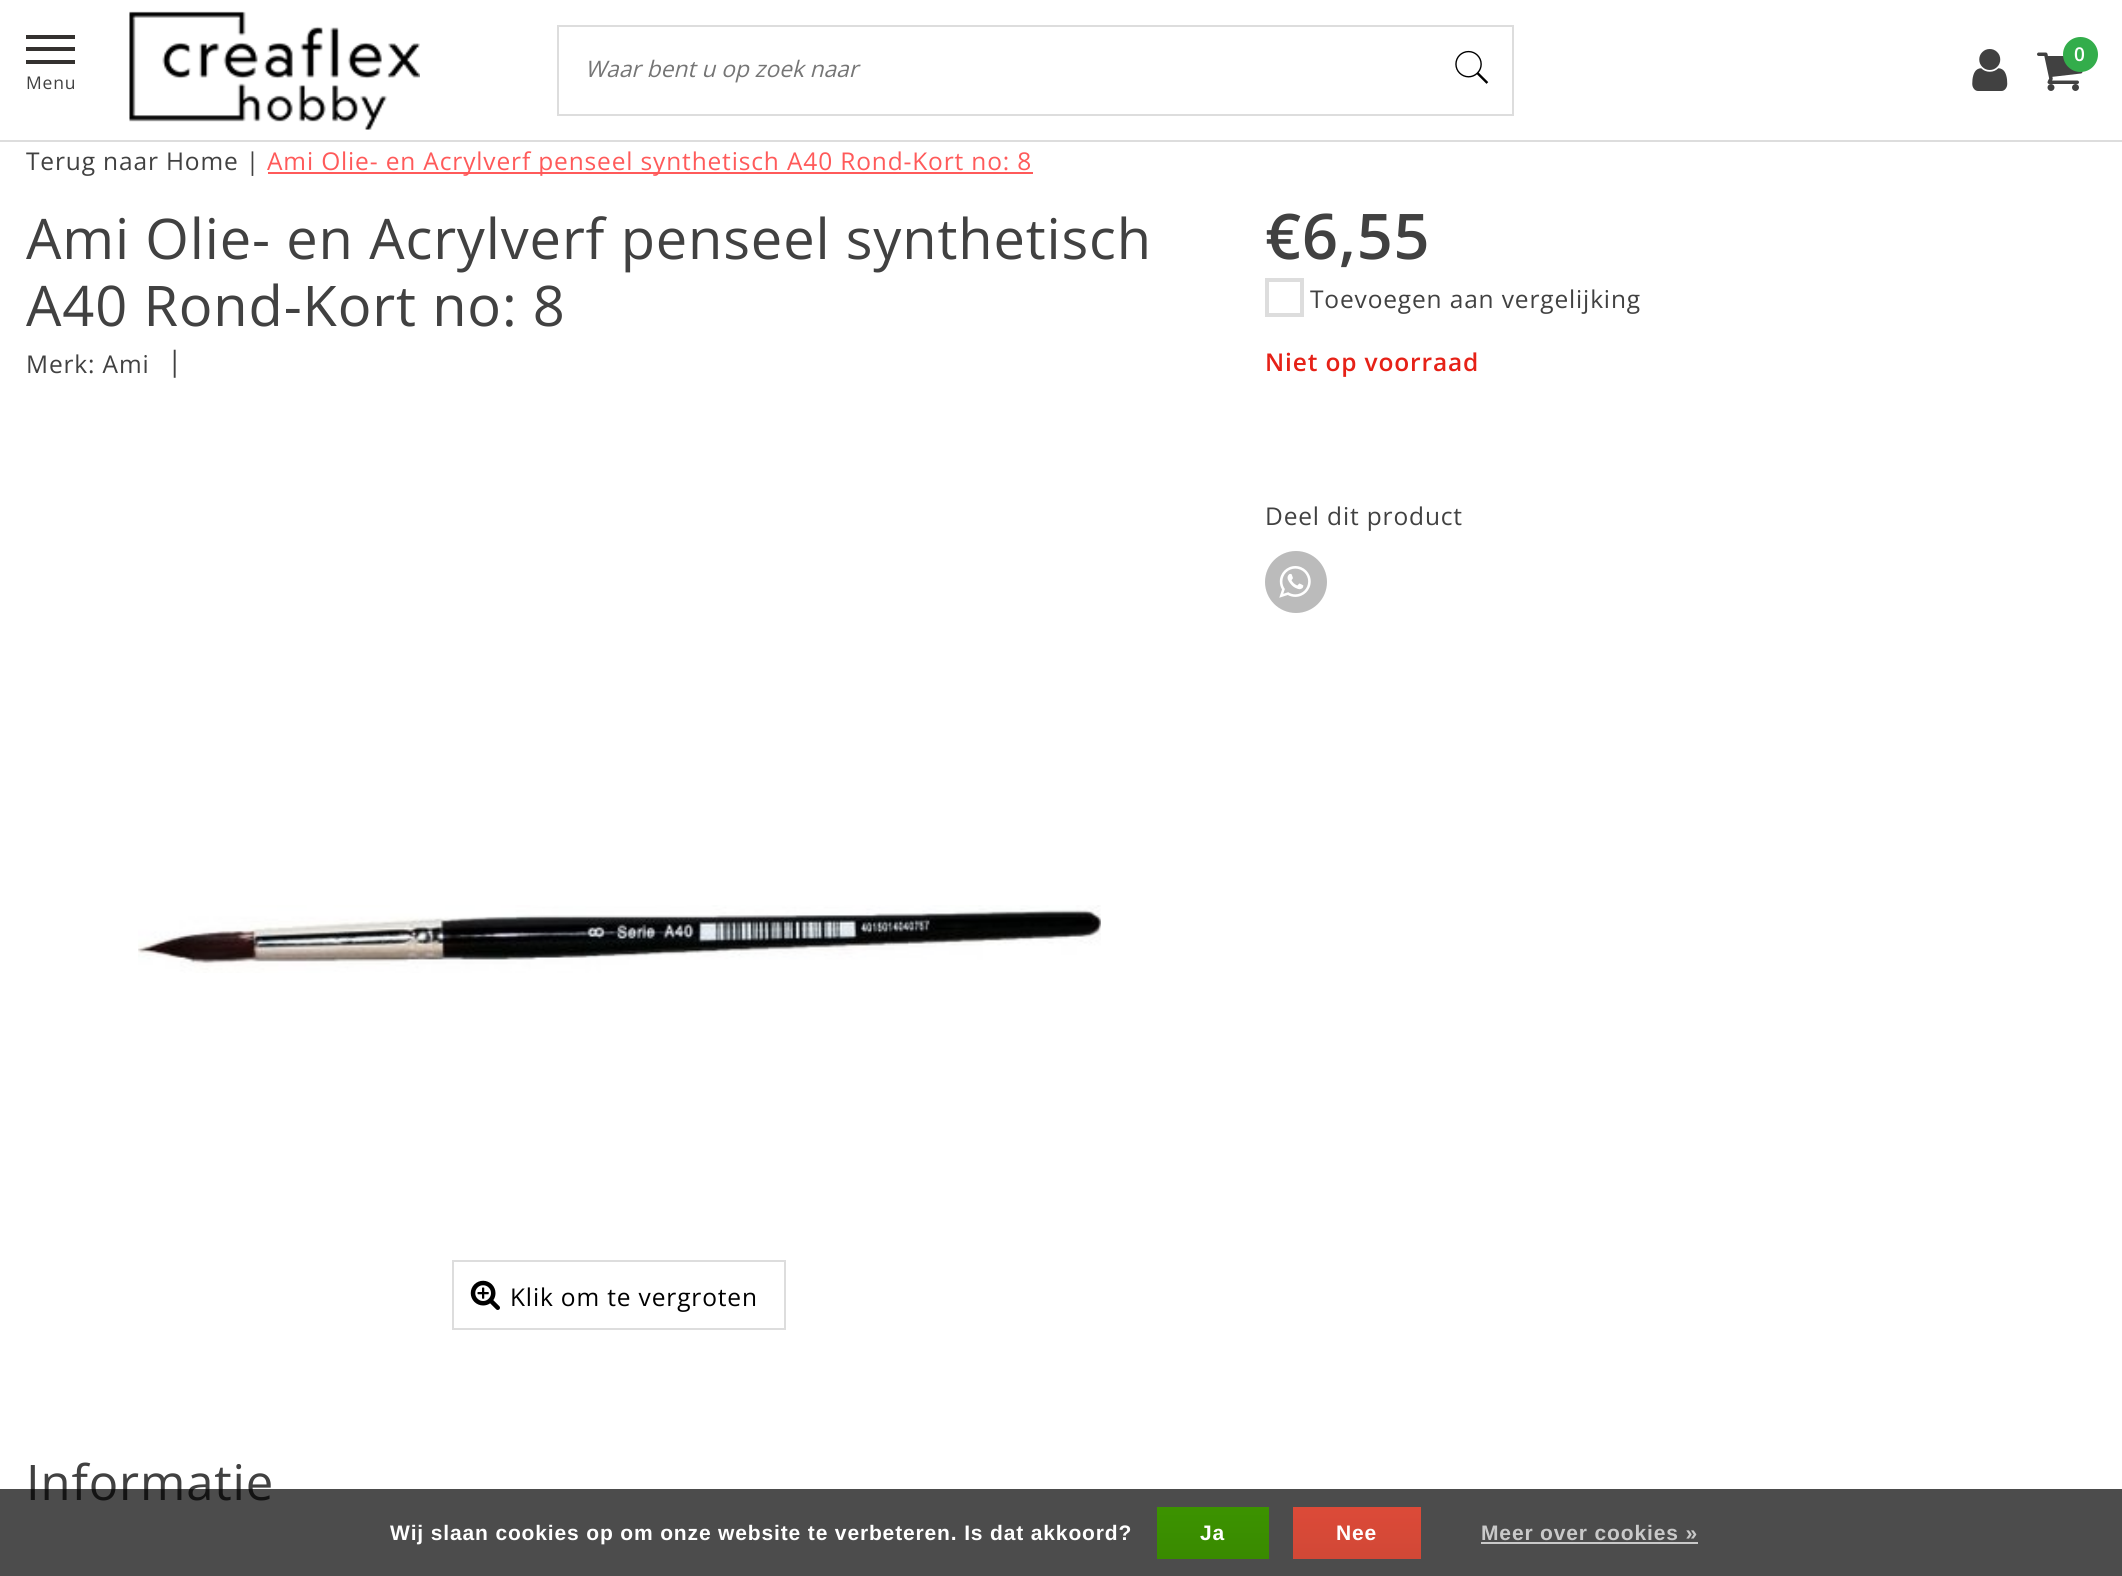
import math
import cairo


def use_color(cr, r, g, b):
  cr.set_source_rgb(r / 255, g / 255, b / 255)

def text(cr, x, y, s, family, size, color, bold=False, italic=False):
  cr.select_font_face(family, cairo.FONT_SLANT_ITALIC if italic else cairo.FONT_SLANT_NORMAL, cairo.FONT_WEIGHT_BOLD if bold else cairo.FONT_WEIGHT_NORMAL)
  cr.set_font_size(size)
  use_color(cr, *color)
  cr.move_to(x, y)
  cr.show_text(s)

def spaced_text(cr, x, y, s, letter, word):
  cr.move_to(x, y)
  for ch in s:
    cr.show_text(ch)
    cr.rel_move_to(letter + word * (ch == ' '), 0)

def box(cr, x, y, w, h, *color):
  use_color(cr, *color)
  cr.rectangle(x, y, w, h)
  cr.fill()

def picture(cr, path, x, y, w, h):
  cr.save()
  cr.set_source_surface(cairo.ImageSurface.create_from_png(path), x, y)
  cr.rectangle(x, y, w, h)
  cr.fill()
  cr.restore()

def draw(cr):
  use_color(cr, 255, 255, 255)
  cr.paint()
  box(cr, 0, 140, 2122, 2, 221, 221, 221)
  picture(cr, "img_01.png", 1972, 49, 36, 42)
  picture(cr, "img_02.png", 2037, 52, 46, 39)
  use_color(cr, 51, 173, 75)
  cr.arc(2080.5, 54.5, 17.5, 0, 2 * math.pi)
  cr.fill()
  box(cr, 26, 35, 49, 4, 52, 49, 47)
  box(cr, 26, 47, 49, 4, 52, 49, 47)
  box(cr, 26, 60, 49, 4, 52, 49, 47)
  picture(cr, "img_03.png", 129, 11, 291, 119)
  cr.rectangle(558, 26, 955, 89)
  use_color(cr, 221, 221, 221)
  cr.stroke()
  picture(cr, "img_04.png", 1455, 50, 34, 34)
  box(cr, 268, 172, 765, 2, 255, 90, 90)
  picture(cr, "img_05.png", 138, 905, 963, 68)
  cr.rectangle(453, 1261, 332, 68)
  use_color(cr, 221, 221, 221)
  cr.stroke()
  picture(cr, "img_06.png", 470, 1280, 30, 30)
  cr.rectangle(1267, 280, 35, 35)
  cr.set_line_width(4)
  cr.stroke()
  use_color(cr, 187, 187, 187)
  cr.arc(1296, 582, 31, 0, 2 * math.pi)
  cr.fill()
  picture(cr, "img_07.png", 1279, 566, 32, 32)
  cr.select_font_face("Open Sans SemiBold")
  cr.set_font_size(19)
  use_color(cr, 255, 255, 255)
  spaced_text(cr, 2074, 61, "0", 0.85, 0)
  cr.select_font_face("Open Sans")
  cr.set_font_size(17.5)
  use_color(cr, 65, 65, 65)
  spaced_text(cr, 26, 89, "Menu", 0.85, 0)
  text(cr, 585, 77, "Waar bent u op zoek naar", "Open Sans", 22.75, (117, 117, 117), italic=True)
  cr.select_font_face("Open Sans")
  cr.set_font_size(24.5)
  use_color(cr, 65, 65, 65)
  spaced_text(cr, 26, 170, "Terug naar Home |", 0.85, 0)
  use_color(cr, 255, 90, 90)
  spaced_text(cr, 267, 170, "Ami Olie- en Acrylverf penseel synthetisch A40 Rond-Kort no: 8", 0.85, 0)
  cr.set_font_size(56)
  use_color(cr, 65, 65, 65)
  spaced_text(cr, 26, 259, "Ami Olie- en Acrylverf penseel synthetisch", 0.85, 0)
  spaced_text(cr, 26, 326, "A40 Rond-Kort no: 8", 0.85, 0)
  cr.set_font_size(24.5)
  spaced_text(cr, 26, 373, "Merk: Ami", 0.85, 0)
  cr.set_font_size(28)
  spaced_text(cr, 167, 371, "|", 0.85, 0)
  cr.set_font_size(24.5)
  use_color(cr, 0, 0, 0)
  spaced_text(cr, 510, 1306, "Klik om te vergroten", 0.85, 0)
  cr.select_font_face("Open Sans SemiBold")
  cr.set_font_size(63)
  use_color(cr, 65, 65, 65)
  spaced_text(cr, 1265, 259, "€6,55", 0.85, 0)
  cr.select_font_face("Open Sans")
  cr.set_font_size(24.5)
  spaced_text(cr, 1310, 308, "Toevoegen aan vergelijking", 0.85, 0)
  cr.select_font_face("Open Sans SemiBold")
  use_color(cr, 230, 33, 23)
  spaced_text(cr, 1265, 371, "Niet op voorraad", 0.85, 0)
  cr.select_font_face("Open Sans")
  use_color(cr, 65, 65, 65)
  spaced_text(cr, 1265, 525, "Deel dit product", 0.85, 0)
  cr.set_font_size(49)
  spaced_text(cr, 26, 1500, "Informatie", 0.85, 0)
  cr.set_source_rgba(0, 0, 0, 0.7)
  cr.rectangle(0, 1489, 2122, 87)
  cr.fill()
  cr.select_font_face("Liberation Sans", cairo.FONT_SLANT_NORMAL, cairo.FONT_WEIGHT_BOLD)
  cr.set_font_size(21)
  use_color(cr, 255, 255, 255)
  spaced_text(cr, 390, 1540, "Wij slaan cookies op om onze website te verbeteren. Is dat akkoord?", 0.85, 0)
  gradient = cairo.LinearGradient(1213, 1507, 1213, 1559)
  gradient.add_color_stop_rgba(0, 0.235, 0.576, 0, 1)
  gradient.add_color_stop_rgba(1, 0.224, 0.541, 0, 1)
  cr.set_source(gradient)
  cr.rectangle(1157, 1507, 112, 52)
  cr.fill()
  use_color(cr, 255, 255, 255)
  spaced_text(cr, 1200, 1540, "Ja", 0.85, 0)
  gradient = cairo.LinearGradient(1357, 1507, 1357, 1559)
  gradient.add_color_stop_rgba(0, 0.863, 0.29, 0.22, 1)
  gradient.add_color_stop_rgba(1, 0.82, 0.282, 0.212, 1)
  cr.set_source(gradient)
  cr.rectangle(1293, 1507, 128, 52)
  cr.fill()
  use_color(cr, 255, 255, 255)
  spaced_text(cr, 1336, 1540, "Nee", 0.85, 0)
  use_color(cr, 201, 201, 201)
  spaced_text(cr, 1481, 1540, "Meer over cookies »", 0.85, 0)
  box(cr, 1481, 1542, 217, 2, 201, 201, 201)


surface = cairo.ImageSurface(cairo.FORMAT_RGB24, 2122, 1576)
cr = cairo.Context(surface)
options = cairo.FontOptions()
options.set_hint_metrics(cairo.HINT_METRICS_OFF)
options.set_hint_style(cairo.HINT_STYLE_NONE)
cr.set_font_options(options)
cr.set_miter_limit(4)
draw(cr)
surface.write_to_png("out.png")
